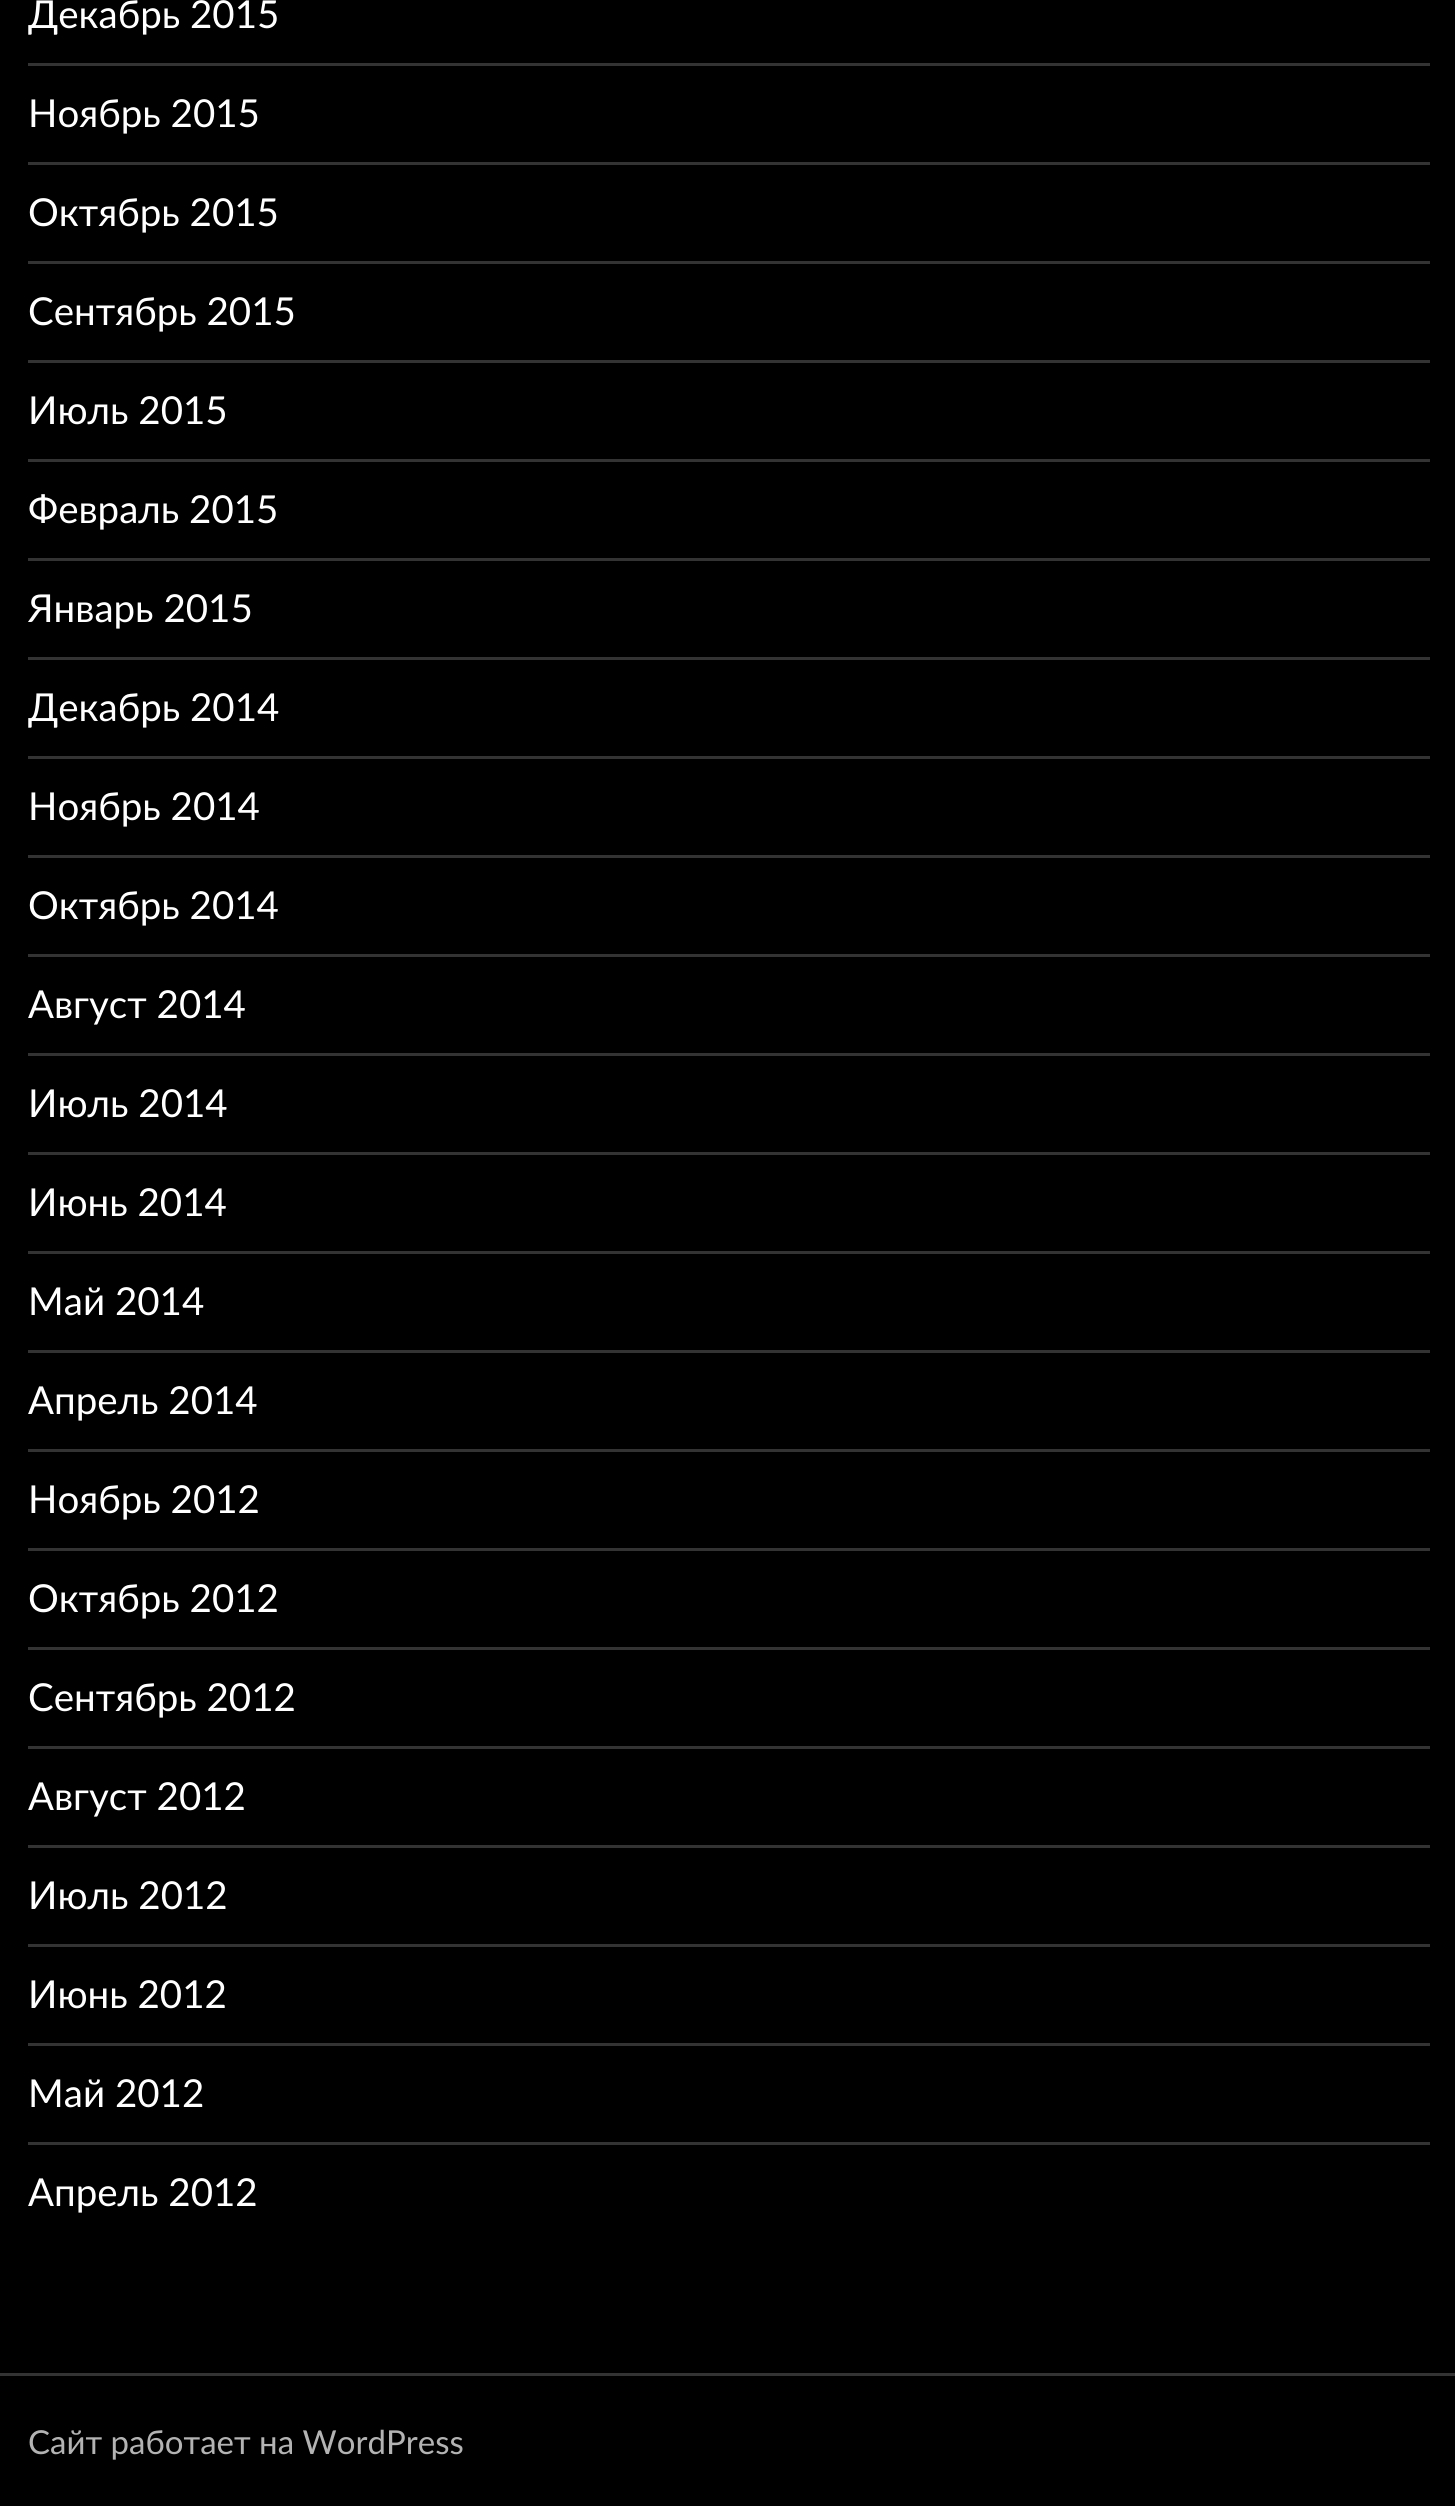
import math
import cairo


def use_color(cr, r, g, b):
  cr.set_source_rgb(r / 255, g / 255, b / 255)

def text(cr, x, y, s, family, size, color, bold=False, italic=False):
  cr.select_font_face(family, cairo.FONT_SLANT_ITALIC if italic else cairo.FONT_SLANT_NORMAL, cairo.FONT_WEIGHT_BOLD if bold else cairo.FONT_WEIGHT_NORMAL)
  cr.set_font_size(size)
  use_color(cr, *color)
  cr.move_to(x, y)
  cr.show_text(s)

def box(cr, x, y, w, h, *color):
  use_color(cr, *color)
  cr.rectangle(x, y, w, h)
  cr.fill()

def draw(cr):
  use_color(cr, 0, 0, 0)
  cr.paint()
  box(cr, 0, 2373, 1455, 3, 51, 51, 51)
  box(cr, 28, 63, 1402, 3, 51, 51, 51)
  box(cr, 28, 162, 1402, 3, 51, 51, 51)
  box(cr, 28, 261, 1402, 3, 51, 51, 51)
  box(cr, 28, 360, 1402, 3, 51, 51, 51)
  box(cr, 28, 459, 1402, 3, 51, 51, 51)
  box(cr, 28, 558, 1402, 3, 51, 51, 51)
  box(cr, 28, 657, 1402, 3, 51, 51, 51)
  box(cr, 28, 756, 1402, 3, 51, 51, 51)
  box(cr, 28, 855, 1402, 3, 51, 51, 51)
  box(cr, 28, 954, 1402, 3, 51, 51, 51)
  box(cr, 28, 1053, 1402, 3, 51, 51, 51)
  box(cr, 28, 1152, 1402, 3, 51, 51, 51)
  box(cr, 28, 1251, 1402, 3, 51, 51, 51)
  box(cr, 28, 1350, 1402, 3, 51, 51, 51)
  box(cr, 28, 1449, 1402, 3, 51, 51, 51)
  box(cr, 28, 1548, 1402, 3, 51, 51, 51)
  box(cr, 28, 1647, 1402, 3, 51, 51, 51)
  box(cr, 28, 1746, 1402, 3, 51, 51, 51)
  box(cr, 28, 1845, 1402, 3, 51, 51, 51)
  box(cr, 28, 1944, 1402, 3, 51, 51, 51)
  box(cr, 28, 2043, 1402, 3, 51, 51, 51)
  box(cr, 28, 2142, 1402, 3, 51, 51, 51)
  text(cr, 28, 28, "Декабрь 2015", "Lato", 38.5, (255, 255, 255))
  text(cr, 28, 127, "Ноябрь 2015", "Lato", 38.5, (255, 255, 255))
  text(cr, 28, 226, "Октябрь 2015", "Lato", 38.5, (255, 255, 255))
  text(cr, 28, 325, "Сентябрь 2015", "Lato", 38.5, (255, 255, 255))
  text(cr, 28, 424, "Июль 2015", "Lato", 38.5, (255, 255, 255))
  text(cr, 28, 523, "Февраль 2015", "Lato", 38.5, (255, 255, 255))
  text(cr, 28, 622, "Январь 2015", "Lato", 38.5, (255, 255, 255))
  text(cr, 28, 721, "Декабрь 2014", "Lato", 38.5, (255, 255, 255))
  text(cr, 28, 820, "Ноябрь 2014", "Lato", 38.5, (255, 255, 255))
  text(cr, 28, 919, "Октябрь 2014", "Lato", 38.5, (255, 255, 255))
  text(cr, 28, 1018, "Август 2014", "Lato", 38.5, (255, 255, 255))
  text(cr, 28, 1117, "Июль 2014", "Lato", 38.5, (255, 255, 255))
  text(cr, 28, 1216, "Июнь 2014", "Lato", 38.5, (255, 255, 255))
  text(cr, 28, 1315, "Май 2014", "Lato", 38.5, (255, 255, 255))
  text(cr, 28, 1414, "Апрель 2014", "Lato", 38.5, (255, 255, 255))
  text(cr, 28, 1513, "Ноябрь 2012", "Lato", 38.5, (255, 255, 255))
  text(cr, 28, 1612, "Октябрь 2012", "Lato", 38.5, (255, 255, 255))
  text(cr, 28, 1711, "Сентябрь 2012", "Lato", 38.5, (255, 255, 255))
  text(cr, 28, 1810, "Август 2012", "Lato", 38.5, (255, 255, 255))
  text(cr, 28, 1909, "Июль 2012", "Lato", 38.5, (255, 255, 255))
  text(cr, 28, 2008, "Июнь 2012", "Lato", 38.5, (255, 255, 255))
  text(cr, 28, 2107, "Май 2012", "Lato", 38.5, (255, 255, 255))
  text(cr, 28, 2206, "Апрель 2012", "Lato", 38.5, (255, 255, 255))
  text(cr, 28, 2454, "Сайт работает на WordPress", "Lato", 33, (179, 179, 179))


surface = cairo.ImageSurface(cairo.FORMAT_RGB24, 1455, 2506)
cr = cairo.Context(surface)
options = cairo.FontOptions()
options.set_hint_metrics(cairo.HINT_METRICS_OFF)
options.set_hint_style(cairo.HINT_STYLE_NONE)
cr.set_font_options(options)
cr.set_miter_limit(4)
draw(cr)
surface.write_to_png("out.png")
